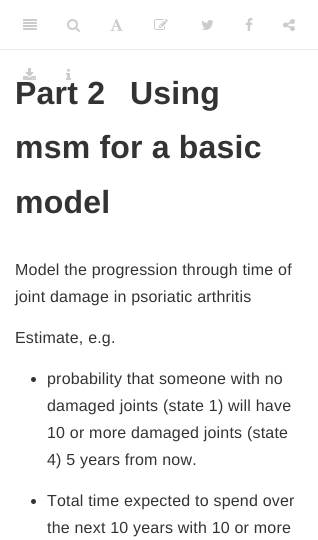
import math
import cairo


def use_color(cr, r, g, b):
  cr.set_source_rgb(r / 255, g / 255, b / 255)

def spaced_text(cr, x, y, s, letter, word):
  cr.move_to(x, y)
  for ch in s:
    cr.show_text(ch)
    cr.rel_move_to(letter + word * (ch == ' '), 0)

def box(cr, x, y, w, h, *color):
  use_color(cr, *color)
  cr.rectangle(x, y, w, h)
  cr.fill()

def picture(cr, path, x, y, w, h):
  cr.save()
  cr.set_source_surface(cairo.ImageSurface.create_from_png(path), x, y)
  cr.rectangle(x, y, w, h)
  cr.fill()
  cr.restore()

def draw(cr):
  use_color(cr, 255, 255, 255)
  cr.paint()
  box(cr, 0, 49, 318, 1, 237, 237, 237)
  picture(cr, "img_01.png", 23, 19, 14, 11)
  picture(cr, "img_02.png", 67, 19, 13, 13)
  picture(cr, "img_03.png", 110, 19, 13, 12)
  picture(cr, "img_04.png", 154, 19, 14, 11)
  picture(cr, "img_05.png", 201, 20, 13, 10)
  picture(cr, "img_06.png", 245, 18, 8, 13)
  picture(cr, "img_07.png", 283, 19, 12, 12)
  picture(cr, "img_08.png", 23, 68, 13, 12)
  picture(cr, "img_09.png", 66, 69, 5, 11)
  use_color(cr, 51, 51, 51)
  cr.arc(33.5, 379.5, 2.5, 0, 2 * math.pi)
  cr.fill()
  cr.arc(33.5, 501.5, 2.5, 0, 2 * math.pi)
  cr.fill()
  cr.select_font_face("Liberation Sans", cairo.FONT_SLANT_NORMAL, cairo.FONT_WEIGHT_BOLD)
  cr.set_font_size(32)
  spaced_text(cr, 15, 104, "Part 2", 0.2, 0)
  spaced_text(cr, 130, 104, "Using", 0.2, 0)
  spaced_text(cr, 15, 158, "msm for a basic", 0.2, 0)
  spaced_text(cr, 15, 213, "model", 0.2, 0)
  cr.select_font_face("Liberation Sans")
  cr.set_font_size(16)
  spaced_text(cr, 15, 275, "Model the progression through time of", 0.2, 0)
  spaced_text(cr, 15, 302, "joint damage in psoriatic arthritis", 0.2, 0)
  spaced_text(cr, 15, 343, "Estimate, e.g.", 0.2, 0)
  spaced_text(cr, 47, 384, "probability that someone with no", 0.2, 0)
  spaced_text(cr, 47, 411, "damaged joints (state 1) will have", 0.2, 0)
  spaced_text(cr, 47, 438, "10 or more damaged joints (state", 0.2, 0)
  spaced_text(cr, 47, 465, "4) 5 years from now.", 0.2, 0)
  spaced_text(cr, 47, 506, "Total time expected to spend over", 0.2, 0)
  spaced_text(cr, 47, 533, "the next 10 years with 10 or more", 0.2, 0)


surface = cairo.ImageSurface(cairo.FORMAT_RGB24, 318, 540)
cr = cairo.Context(surface)
options = cairo.FontOptions()
options.set_hint_metrics(cairo.HINT_METRICS_OFF)
options.set_hint_style(cairo.HINT_STYLE_NONE)
cr.set_font_options(options)
cr.set_miter_limit(4)
draw(cr)
surface.write_to_png("out.png")
